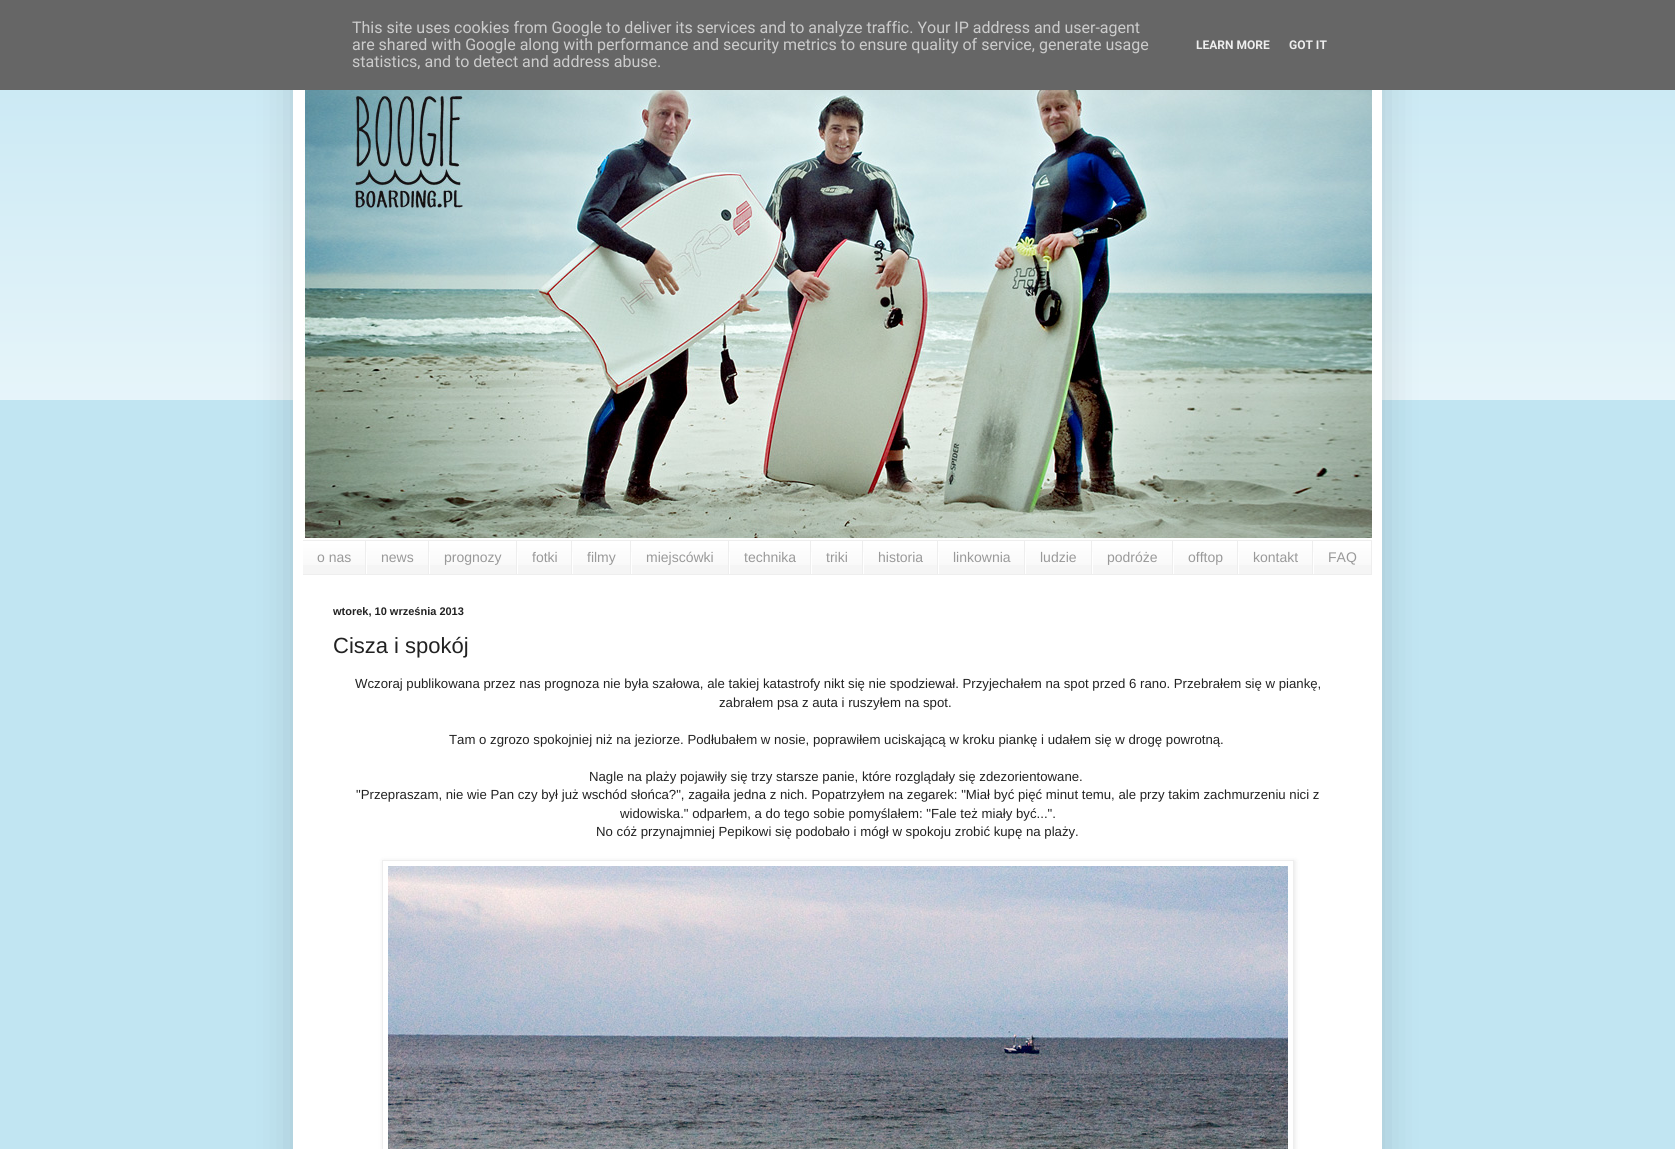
import math
import cairo


def use_color(cr, r, g, b):
  cr.set_source_rgb(r / 255, g / 255, b / 255)

def text(cr, x, y, s, family, size, color, bold=False, italic=False):
  cr.select_font_face(family, cairo.FONT_SLANT_ITALIC if italic else cairo.FONT_SLANT_NORMAL, cairo.FONT_WEIGHT_BOLD if bold else cairo.FONT_WEIGHT_NORMAL)
  cr.set_font_size(size)
  use_color(cr, *color)
  cr.move_to(x, y)
  cr.show_text(s)

def box(cr, x, y, w, h, *color):
  use_color(cr, *color)
  cr.rectangle(x, y, w, h)
  cr.fill()

def round_rect(cr, x, y, w, h, r):
  cr.new_sub_path()
  for i, (u, v) in enumerate([(x + w - r, y + h - r), (x + r, y + h - r), (x + r, y + r), (x + w - r, y + r)]):
    cr.arc(u, v, r, i * math.pi / 2, (i + 1) * math.pi / 2)
  cr.close_path()

def shadow(cr, x, y, w, h, r, blur, alpha):
  cr.push_group_with_content(cairo.CONTENT_ALPHA)
  cr.set_operator(cairo.OPERATOR_SOURCE)
  for i in range(15, -16, -2):
    e = blur * i / 6
    if min(w, h) + 2 * e > 0:
      cr.set_source_rgba(0, 0, 0, alpha * math.erfc((i - 1) / 8.5) / 2)
      round_rect(cr, x - e, y - e, w + 2 * e, h + 2 * e, max(0, min(r + e + blur * .6, min(w, h) / 2 + e)))
      cr.fill()
  cr.mask(cr.pop_group())

def picture(cr, path, x, y, w, h):
  cr.save()
  cr.set_source_surface(cairo.ImageSurface.create_from_png(path), x, y)
  cr.rectangle(x, y, w, h)
  cr.fill()
  cr.restore()

def draw(cr):
  use_color(cr, 193, 229, 242)
  cr.paint()
  picture(cr, "img_01.png", 0, 90, 1675, 310)
  use_color(cr, 0, 0, 0)
  shadow(cr, 293, 30, 1089, 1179, 0, 20, 0.15)
  box(cr, 0, 0, 1675, 90, 102, 102, 102)
  box(cr, 293, 90, 1089, 1059, 255, 255, 255)
  picture(cr, "img_02.png", 303, 90, 1069, 450)
  box(cr, 303, 542, 1068, 32, 245, 245, 245)
  picture(cr, "img_03.png", 303, 541, 1068, 24)
  box(cr, 303, 540, 1069, 1, 238, 238, 238)
  box(cr, 303, 574, 1069, 1, 238, 238, 238)
  box(cr, 365, 541, 1, 33, 238, 238, 238)
  box(cr, 428, 541, 1, 33, 238, 238, 238)
  box(cr, 366, 552, 1, 22, 255, 255, 255)
  box(cr, 516, 541, 1, 33, 238, 238, 238)
  box(cr, 429, 552, 1, 22, 255, 255, 255)
  box(cr, 571, 541, 1, 33, 238, 238, 238)
  box(cr, 517, 552, 1, 22, 255, 255, 255)
  box(cr, 630, 541, 1, 33, 238, 238, 238)
  box(cr, 572, 552, 1, 22, 255, 255, 255)
  box(cr, 728, 541, 1, 33, 238, 238, 238)
  box(cr, 631, 552, 1, 22, 255, 255, 255)
  box(cr, 810, 541, 1, 33, 238, 238, 238)
  box(cr, 729, 552, 1, 22, 255, 255, 255)
  box(cr, 862, 541, 1, 33, 238, 238, 238)
  box(cr, 811, 552, 1, 22, 255, 255, 255)
  box(cr, 937, 541, 1, 33, 238, 238, 238)
  box(cr, 863, 552, 1, 22, 255, 255, 255)
  box(cr, 1024, 541, 1, 33, 238, 238, 238)
  box(cr, 938, 552, 1, 22, 255, 255, 255)
  box(cr, 1091, 541, 1, 33, 238, 238, 238)
  box(cr, 1025, 552, 1, 22, 255, 255, 255)
  box(cr, 1172, 541, 1, 33, 238, 238, 238)
  box(cr, 1092, 552, 1, 22, 255, 255, 255)
  box(cr, 1237, 541, 1, 33, 238, 238, 238)
  box(cr, 1173, 552, 1, 22, 255, 255, 255)
  box(cr, 1312, 541, 1, 33, 238, 238, 238)
  box(cr, 1238, 552, 1, 22, 255, 255, 255)
  box(cr, 1371, 541, 1, 33, 238, 238, 238)
  box(cr, 1313, 552, 1, 22, 255, 255, 255)
  cr.save()
  cr.set_fill_rule(cairo.FILL_RULE_EVEN_ODD)
  cr.new_path()
  cr.move_to(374, 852)
  cr.line_to(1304, 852)
  cr.line_to(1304, 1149)
  cr.line_to(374, 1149)
  cr.close_path()
  cr.move_to(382, 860)
  cr.line_to(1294, 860)
  cr.line_to(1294, 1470)
  cr.line_to(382, 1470)
  cr.close_path()
  cr.clip()
  use_color(cr, 0, 0, 0)
  shadow(cr, 383, 861, 912, 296, 0, 2.5, 0.1)
  cr.restore()
  cr.rectangle(382.5, 860.5, 911, 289)
  use_color(cr, 238, 238, 238)
  cr.set_line_width(1)
  cr.stroke()
  picture(cr, "img_04.png", 388, 866, 900, 283)
  text(cr, 352, 33, "This site uses cookies from Google to deliver its services and to analyze traffic. Your IP address and user-agent", "Roboto", 16, (204, 204, 204))
  text(cr, 352, 50, "are shared with Google along with performance and security metrics to ensure quality of service, generate usage", "Roboto", 16, (204, 204, 204))
  text(cr, 352, 67, "statistics, and to detect and address abuse.", "Roboto", 16, (204, 204, 204))
  text(cr, 1196, 49, "LEARN MORE", "Roboto", 12, (238, 238, 238), bold=True)
  text(cr, 1289, 49, "GOT IT", "Roboto", 12, (238, 238, 238), bold=True)
  text(cr, 317, 562, "o nas", "Liberation Sans", 14, (153, 153, 153))
  text(cr, 381, 562, "news", "Liberation Sans", 14, (153, 153, 153))
  text(cr, 444, 562, "prognozy", "Liberation Sans", 14, (153, 153, 153))
  text(cr, 532, 562, "fotki", "Liberation Sans", 14, (153, 153, 153))
  text(cr, 587, 562, "filmy", "Liberation Sans", 14, (153, 153, 153))
  text(cr, 646, 562, "miejscówki", "Liberation Sans", 14, (153, 153, 153))
  text(cr, 744, 562, "technika", "Liberation Sans", 14, (153, 153, 153))
  text(cr, 826, 562, "triki", "Liberation Sans", 14, (153, 153, 153))
  text(cr, 878, 562, "historia", "Liberation Sans", 14, (153, 153, 153))
  text(cr, 953, 562, "linkownia", "Liberation Sans", 14, (153, 153, 153))
  text(cr, 1040, 562, "ludzie", "Liberation Sans", 14, (153, 153, 153))
  text(cr, 1107, 562, "podróże", "Liberation Sans", 14, (153, 153, 153))
  text(cr, 1188, 562, "offtop", "Liberation Sans", 14, (153, 153, 153))
  text(cr, 1253, 562, "kontakt", "Liberation Sans", 14, (153, 153, 153))
  text(cr, 1328, 562, "FAQ", "Liberation Sans", 14, (153, 153, 153))
  text(cr, 333, 615, "wtorek, 10 września 2013", "Liberation Sans", 11, (34, 34, 34), bold=True)
  text(cr, 333, 653, "Cisza i spokój", "Liberation Sans", 22, (34, 34, 34))
  text(cr, 355, 688, "Wczoraj publikowana przez nas prognoza nie była szałowa, ale takiej katastrofy nikt się nie spodziewał. Przyjechałem na spot przed 6 rano. Przebrałem się w piankę,", "Liberation Sans", 13.2, (34, 34, 34))
  text(cr, 719, 707, "zabrałem psa z auta i ruszyłem na spot.", "Liberation Sans", 13.2, (34, 34, 34))
  text(cr, 449, 744, "Tam o zgrozo spokojniej niż na jeziorze. Podłubałem w nosie, poprawiłem uciskającą w kroku piankę i udałem się w drogę powrotną.", "Liberation Sans", 13.2, (34, 34, 34))
  text(cr, 589, 781, "Nagle na plaży pojawiły się trzy starsze panie, które rozglądały się zdezorientowane.", "Liberation Sans", 13.2, (34, 34, 34))
  text(cr, 356, 799, "\"Przepraszam, nie wie Pan czy był już wschód słońca?\", zagaiła jedna z nich. Popatrzyłem na zegarek: \"Miał być pięć minut temu, ale przy takim zachmurzeniu nici z", "Liberation Sans", 13.2, (34, 34, 34))
  text(cr, 620, 818, "widowiska.\" odparłem, a do tego sobie pomyślałem: \"Fale też miały być...\".", "Liberation Sans", 13.2, (34, 34, 34))
  text(cr, 596, 836, "No cóż przynajmniej Pepikowi się podobało i mógł w spokoju zrobić kupę na plaży.", "Liberation Sans", 13.2, (34, 34, 34))


surface = cairo.ImageSurface(cairo.FORMAT_RGB24, 1675, 1149)
cr = cairo.Context(surface)
options = cairo.FontOptions()
options.set_hint_metrics(cairo.HINT_METRICS_OFF)
options.set_hint_style(cairo.HINT_STYLE_NONE)
cr.set_font_options(options)
cr.set_miter_limit(4)
draw(cr)
surface.write_to_png("out.png")
